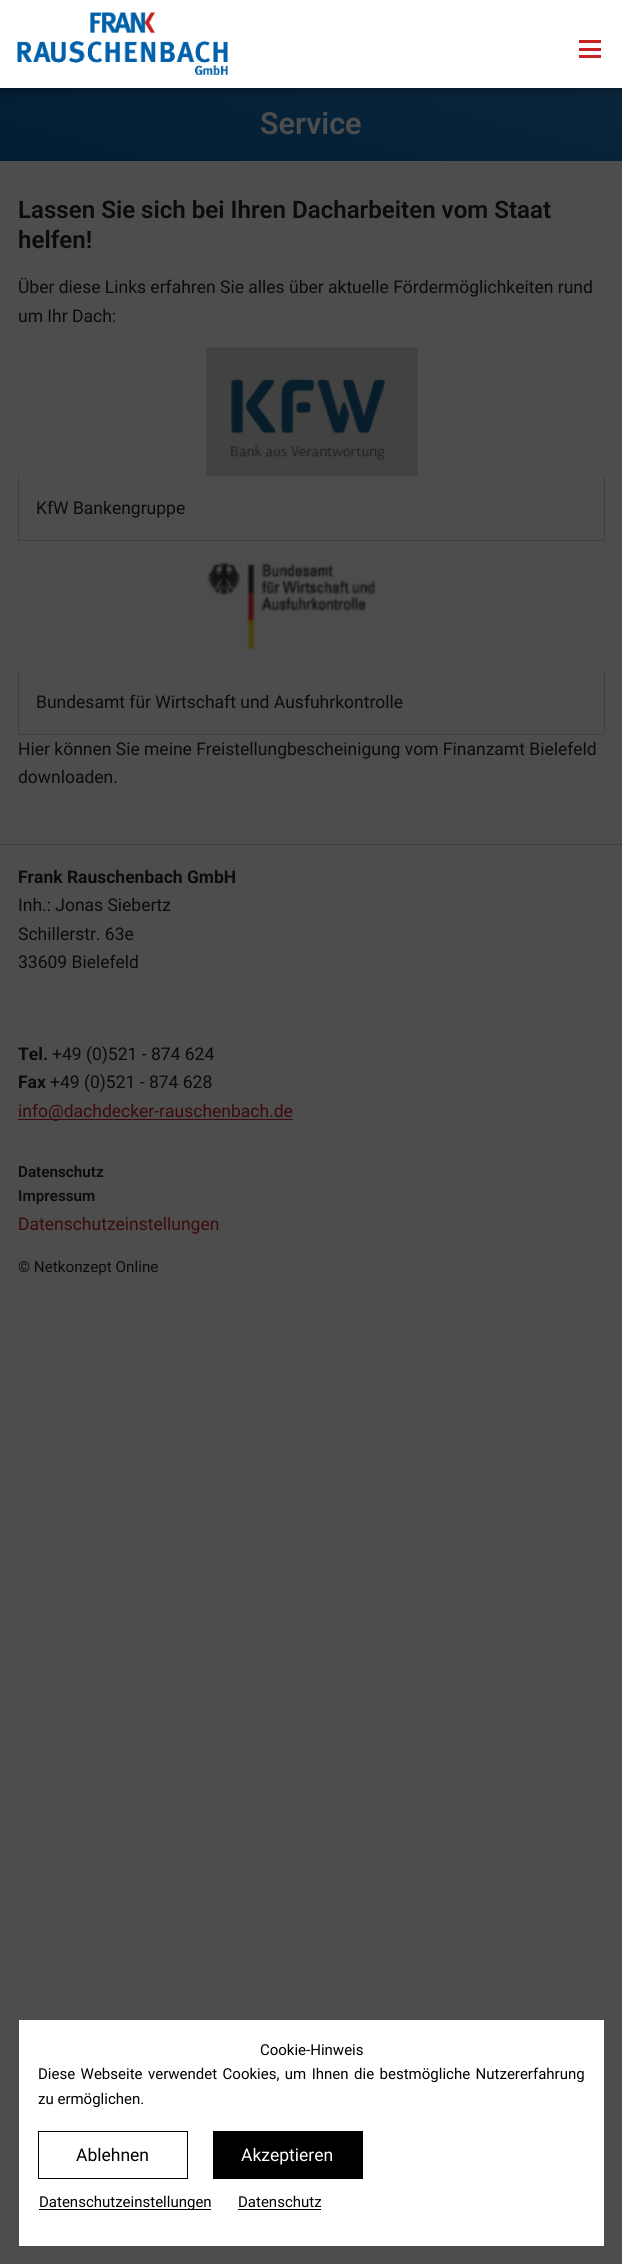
import math
import cairo


def use_color(cr, r, g, b):
  cr.set_source_rgb(r / 255, g / 255, b / 255)

def text(cr, x, y, s, family, size, color, bold=False, italic=False):
  cr.select_font_face(family, cairo.FONT_SLANT_ITALIC if italic else cairo.FONT_SLANT_NORMAL, cairo.FONT_WEIGHT_BOLD if bold else cairo.FONT_WEIGHT_NORMAL)
  cr.set_font_size(size)
  use_color(cr, *color)
  cr.move_to(x, y)
  cr.show_text(s)

def spaced_text(cr, x, y, s, letter, word):
  cr.move_to(x, y)
  for ch in s:
    cr.show_text(ch)
    cr.rel_move_to(letter + word * (ch == ' '), 0)

def box(cr, x, y, w, h, *color):
  use_color(cr, *color)
  cr.rectangle(x, y, w, h)
  cr.fill()

def round_rect(cr, x, y, w, h, r):
  cr.new_sub_path()
  for i, (u, v) in enumerate([(x + w - r, y + h - r), (x + r, y + h - r), (x + r, y + r), (x + w - r, y + r)]):
    cr.arc(u, v, r, i * math.pi / 2, (i + 1) * math.pi / 2)
  cr.close_path()

def shadow(cr, x, y, w, h, r, blur, alpha):
  cr.push_group_with_content(cairo.CONTENT_ALPHA)
  cr.set_operator(cairo.OPERATOR_SOURCE)
  for i in range(15, -16, -2):
    e = blur * i / 6
    if min(w, h) + 2 * e > 0:
      cr.set_source_rgba(0, 0, 0, alpha * math.erfc((i - 1) / 8.5) / 2)
      round_rect(cr, x - e, y - e, w + 2 * e, h + 2 * e, max(0, min(r + e + blur * .6, min(w, h) / 2 + e)))
      cr.fill()
  cr.mask(cr.pop_group())

def picture(cr, path, x, y, w, h):
  cr.save()
  cr.set_source_surface(cairo.ImageSurface.create_from_png(path), x, y)
  cr.rectangle(x, y, w, h)
  cr.fill()
  cr.restore()

def draw(cr):
  use_color(cr, 77, 77, 77)
  cr.paint()
  gradient = cairo.LinearGradient(341, 12, 281, 237)
  gradient.add_color_stop_rgba(0, 0.039, 0.149, 0.239, 1)
  gradient.add_color_stop_rgba(1, 0, 0.114, 0.2, 1)
  cr.set_source(gradient)
  cr.rectangle(0, 88, 622, 73)
  cr.fill()
  use_color(cr, 0, 0, 0)
  shadow(cr, -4, -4, 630, 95, 0, 6, 0.3)
  box(cr, 0, 0, 622, 88, 255, 255, 255)
  picture(cr, "img_01.png", 17, 12, 211, 63)
  box(cr, 579, 48, 22, 3, 201, 33, 35)
  box(cr, 579, 40, 22, 3, 201, 33, 35)
  box(cr, 579, 55, 22, 3, 201, 33, 35)
  picture(cr, "img_02.png", 206, 347, 212, 130)
  box(cr, 604, 476, 1, 65, 62, 65, 66)
  box(cr, 18, 540, 587, 1, 62, 65, 66)
  box(cr, 18, 476, 1, 65, 62, 65, 66)
  picture(cr, "img_03.png", 206, 561, 171, 90)
  box(cr, 604, 670, 1, 65, 62, 65, 66)
  box(cr, 18, 734, 587, 1, 62, 65, 66)
  box(cr, 18, 670, 1, 65, 62, 65, 66)
  box(cr, 0, 844, 622, 1, 62, 65, 66)
  box(cr, 18, 1119, 275, 1, 60, 10, 11)
  box(cr, 19, 2020, 585, 226, 255, 255, 255)
  cr.rectangle(38.5, 2131.5, 149, 47)
  use_color(cr, 0, 0, 0)
  cr.set_line_width(1)
  cr.stroke()
  box(cr, 213, 2131, 150, 48, 0, 0, 0)
  box(cr, 39, 2209, 172, 1, 0, 0, 0)
  box(cr, 238, 2209, 83, 1, 0, 0, 0)
  text(cr, 260, 134, "Service", "Roboto SemiBold", 30.5, (77, 77, 77))
  text(cr, 18, 218, "Lassen Sie sich bei Ihren Dacharbeiten vom Staat", "Roboto SemiBold", 24.1, (11, 11, 12))
  text(cr, 18, 248, "helfen!", "Roboto SemiBold", 24.1, (11, 11, 12))
  text(cr, 18, 293, "Über diese Links erfahren Sie alles über aktuelle Fördermöglichkeiten rund", "Roboto", 17.5, (11, 11, 12))
  text(cr, 18, 322, "um Ihr Dach:", "Roboto", 17.5, (11, 11, 12))
  text(cr, 36, 514, "KfW Bankengruppe", "Roboto", 17.5, (11, 11, 12))
  text(cr, 36, 708, "Bundesamt für Wirtschaft und Ausfuhrkontrolle", "Roboto", 17.5, (11, 11, 12))
  text(cr, 18, 755, "Hier können Sie meine Freistellungbescheinigung vom Finanzamt Bielefeld", "Roboto", 17.5, (11, 11, 12))
  text(cr, 18, 783, "downloaden.", "Roboto", 17.5, (11, 11, 12))
  text(cr, 18, 883, "Frank Rauschenbach GmbH", "Roboto", 17.5, (11, 11, 12), bold=True)
  text(cr, 18, 911, "Inh.: Jonas Siebertz", "Roboto", 17.5, (11, 11, 12))
  text(cr, 18, 940, "Schillerstr. 63e", "Roboto", 17.5, (11, 11, 12))
  text(cr, 18, 968, "33609 Bielefeld", "Roboto", 17.5, (11, 11, 12))
  text(cr, 18, 1060, "Tel.", "Roboto", 17.5, (11, 11, 12), bold=True)
  text(cr, 52, 1060, "+49 (0)521 - 874 624", "Roboto", 17.5, (11, 11, 12))
  text(cr, 18, 1088, "Fax", "Roboto", 17.5, (11, 11, 12), bold=True)
  text(cr, 50, 1088, "+49 (0)521 - 874 628", "Roboto", 17.5, (11, 11, 12))
  text(cr, 18, 1117, "info@dachdecker-rauschenbach.de", "Roboto", 17.5, (60, 10, 11))
  text(cr, 18, 1177, "Datenschutz", "Roboto SemiBold", 15.25, (11, 11, 12))
  text(cr, 18, 1201, "Impressum", "Roboto SemiBold", 15.25, (11, 11, 12))
  text(cr, 18, 1230, "Datenschutzeinstellungen", "Roboto", 17.5, (60, 10, 11))
  text(cr, 18, 1272, "© Netkonzept Online", "Roboto", 15.25, (11, 11, 12))
  text(cr, 260, 2055, "Cookie-Hinweis", "Roboto", 15, (0, 0, 0))
  spaced_text(cr, 38, 2079, "Diese Webseite verwendet Cookies, um Ihnen die bestmögliche Nutzererfahrung", 0, 1.75)
  text(cr, 38, 2104, "zu ermöglichen.", "Roboto", 15, (0, 0, 0))
  text(cr, 76, 2161, "Ablehnen", "Roboto", 17.5, (0, 0, 0))
  text(cr, 241, 2161, "Akzeptieren", "Roboto", 17.5, (255, 255, 255))
  text(cr, 39, 2207, "Datenschutzeinstellungen", "Roboto", 15, (0, 0, 0))
  text(cr, 238, 2207, "Datenschutz", "Roboto", 15, (0, 0, 0))


surface = cairo.ImageSurface(cairo.FORMAT_RGB24, 622, 2264)
cr = cairo.Context(surface)
options = cairo.FontOptions()
options.set_hint_metrics(cairo.HINT_METRICS_OFF)
options.set_hint_style(cairo.HINT_STYLE_NONE)
cr.set_font_options(options)
cr.set_miter_limit(4)
draw(cr)
surface.write_to_png("out.png")
